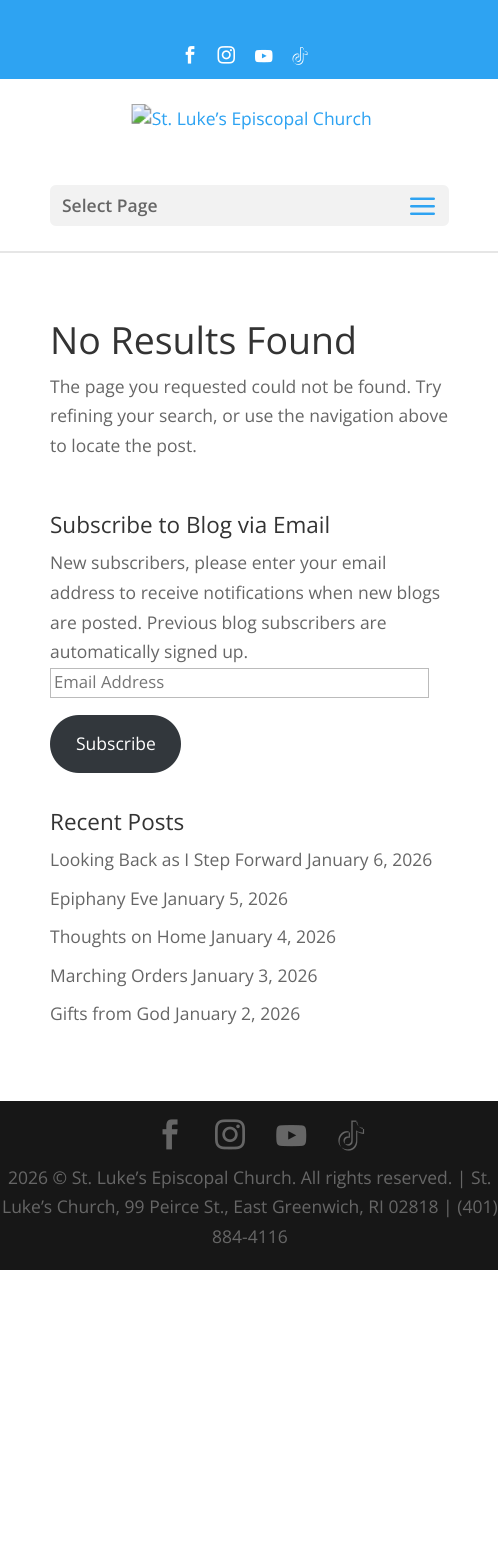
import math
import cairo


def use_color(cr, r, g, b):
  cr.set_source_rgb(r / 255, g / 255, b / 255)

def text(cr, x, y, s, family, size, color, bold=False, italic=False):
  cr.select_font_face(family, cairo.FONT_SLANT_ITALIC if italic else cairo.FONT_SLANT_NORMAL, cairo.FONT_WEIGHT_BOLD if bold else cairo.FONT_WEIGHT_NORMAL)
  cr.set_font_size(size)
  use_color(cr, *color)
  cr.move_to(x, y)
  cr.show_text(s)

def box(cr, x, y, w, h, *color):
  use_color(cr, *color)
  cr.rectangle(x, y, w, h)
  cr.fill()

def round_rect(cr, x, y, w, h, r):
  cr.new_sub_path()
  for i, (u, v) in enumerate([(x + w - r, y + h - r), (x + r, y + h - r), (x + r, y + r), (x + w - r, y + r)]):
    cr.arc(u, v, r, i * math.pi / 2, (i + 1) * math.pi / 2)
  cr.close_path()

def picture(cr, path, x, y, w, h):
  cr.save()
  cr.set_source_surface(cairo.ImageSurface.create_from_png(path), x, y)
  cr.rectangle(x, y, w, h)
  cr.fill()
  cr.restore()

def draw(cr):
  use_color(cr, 255, 255, 255)
  cr.paint()
  box(cr, 0, 0, 498, 79, 46, 163, 242)
  picture(cr, "img_01.png", 185, 46, 10, 18)
  picture(cr, "img_02.png", 217, 46, 18, 18)
  picture(cr, "img_03.png", 255, 49, 18, 14)
  picture(cr, "img_04.png", 292, 47, 16, 18)
  use_color(cr, 230, 230, 230)
  cr.new_path()
  cr.move_to(0, 251)
  cr.line_to(0, 253)
  cr.line_to(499, 253)
  cr.line_to(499, 80)
  cr.line_to(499, 251)
  cr.close_path()
  cr.fill()
  picture(cr, "img_05.png", 131, 104, 240, 26)
  use_color(cr, 242, 242, 242)
  round_rect(cr, 50, 185, 399, 41, 6)
  cr.fill()
  picture(cr, "img_06.png", 410, 197, 25, 18)
  cr.rectangle(50.5, 668.5, 378, 29)
  use_color(cr, 187, 187, 187)
  cr.set_line_width(1)
  cr.stroke()
  use_color(cr, 50, 55, 60)
  round_rect(cr, 50, 715, 131, 58, 29)
  cr.fill()
  box(cr, 0, 1101, 498, 169, 23, 23, 23)
  picture(cr, "img_07.png", 162, 1119, 16, 31)
  picture(cr, "img_08.png", 215, 1119, 30, 31)
  picture(cr, "img_09.png", 276, 1125, 31, 22)
  picture(cr, "img_10.png", 338, 1120, 27, 31)
  text(cr, 62, 212, "Select Page", "Open Sans SemiBold", 17.5, (102, 102, 102))
  text(cr, 50, 354, "No Results Found", "Open Sans", 37.5, (51, 51, 51))
  text(cr, 50, 393, "The page you requested could not be found. Try", "Open Sans", 17.5, (102, 102, 102))
  text(cr, 50, 422, "refining your search, or use the navigation above", "Open Sans", 17.5, (102, 102, 102))
  text(cr, 50, 452, "to locate the post.", "Open Sans", 17.5, (102, 102, 102))
  text(cr, 50, 533, "Subscribe to Blog via Email", "Open Sans", 22.5, (51, 51, 51))
  text(cr, 50, 569, "New subscribers, please enter your email", "Open Sans", 17.5, (102, 102, 102))
  text(cr, 50, 599, "address to receive notifications when new blogs", "Open Sans", 17.5, (102, 102, 102))
  text(cr, 50, 629, "are posted. Previous blog subscribers are", "Open Sans", 17.5, (102, 102, 102))
  text(cr, 50, 658, "automatically signed up.", "Open Sans", 17.5, (102, 102, 102))
  text(cr, 54, 688, "Email Address", "Open Sans", 16.75, (117, 117, 117))
  text(cr, 76, 750, "Subscribe", "Open Sans", 17.5, (255, 255, 255))
  text(cr, 50, 830, "Recent Posts", "Open Sans", 22.5, (51, 51, 51))
  text(cr, 50, 866, "Looking Back as I Step Forward January 6, 2026", "Open Sans", 17.5, (102, 102, 102))
  text(cr, 50, 905, "Epiphany Eve January 5, 2026", "Open Sans", 17.5, (102, 102, 102))
  text(cr, 50, 943, "Thoughts on Home January 4, 2026", "Open Sans", 17.5, (102, 102, 102))
  text(cr, 50, 982, "Marching Orders January 3, 2026", "Open Sans", 17.5, (102, 102, 102))
  text(cr, 50, 1020, "Gifts from God January 2, 2026", "Open Sans", 17.5, (102, 102, 102))
  text(cr, 8, 1184, "2026 © St. Luke’s Episcopal Church. All rights reserved. | St.", "Open Sans", 17.5, (102, 102, 102))
  text(cr, 2, 1213, "Luke’s Church, 99 Peirce St., East Greenwich, RI 02818 | (401)", "Open Sans", 17.5, (102, 102, 102))
  text(cr, 212, 1243, "884-4116", "Open Sans", 17.5, (102, 102, 102))


surface = cairo.ImageSurface(cairo.FORMAT_RGB24, 498, 1547)
cr = cairo.Context(surface)
options = cairo.FontOptions()
options.set_hint_metrics(cairo.HINT_METRICS_OFF)
options.set_hint_style(cairo.HINT_STYLE_NONE)
cr.set_font_options(options)
cr.set_miter_limit(4)
draw(cr)
surface.write_to_png("out.png")
